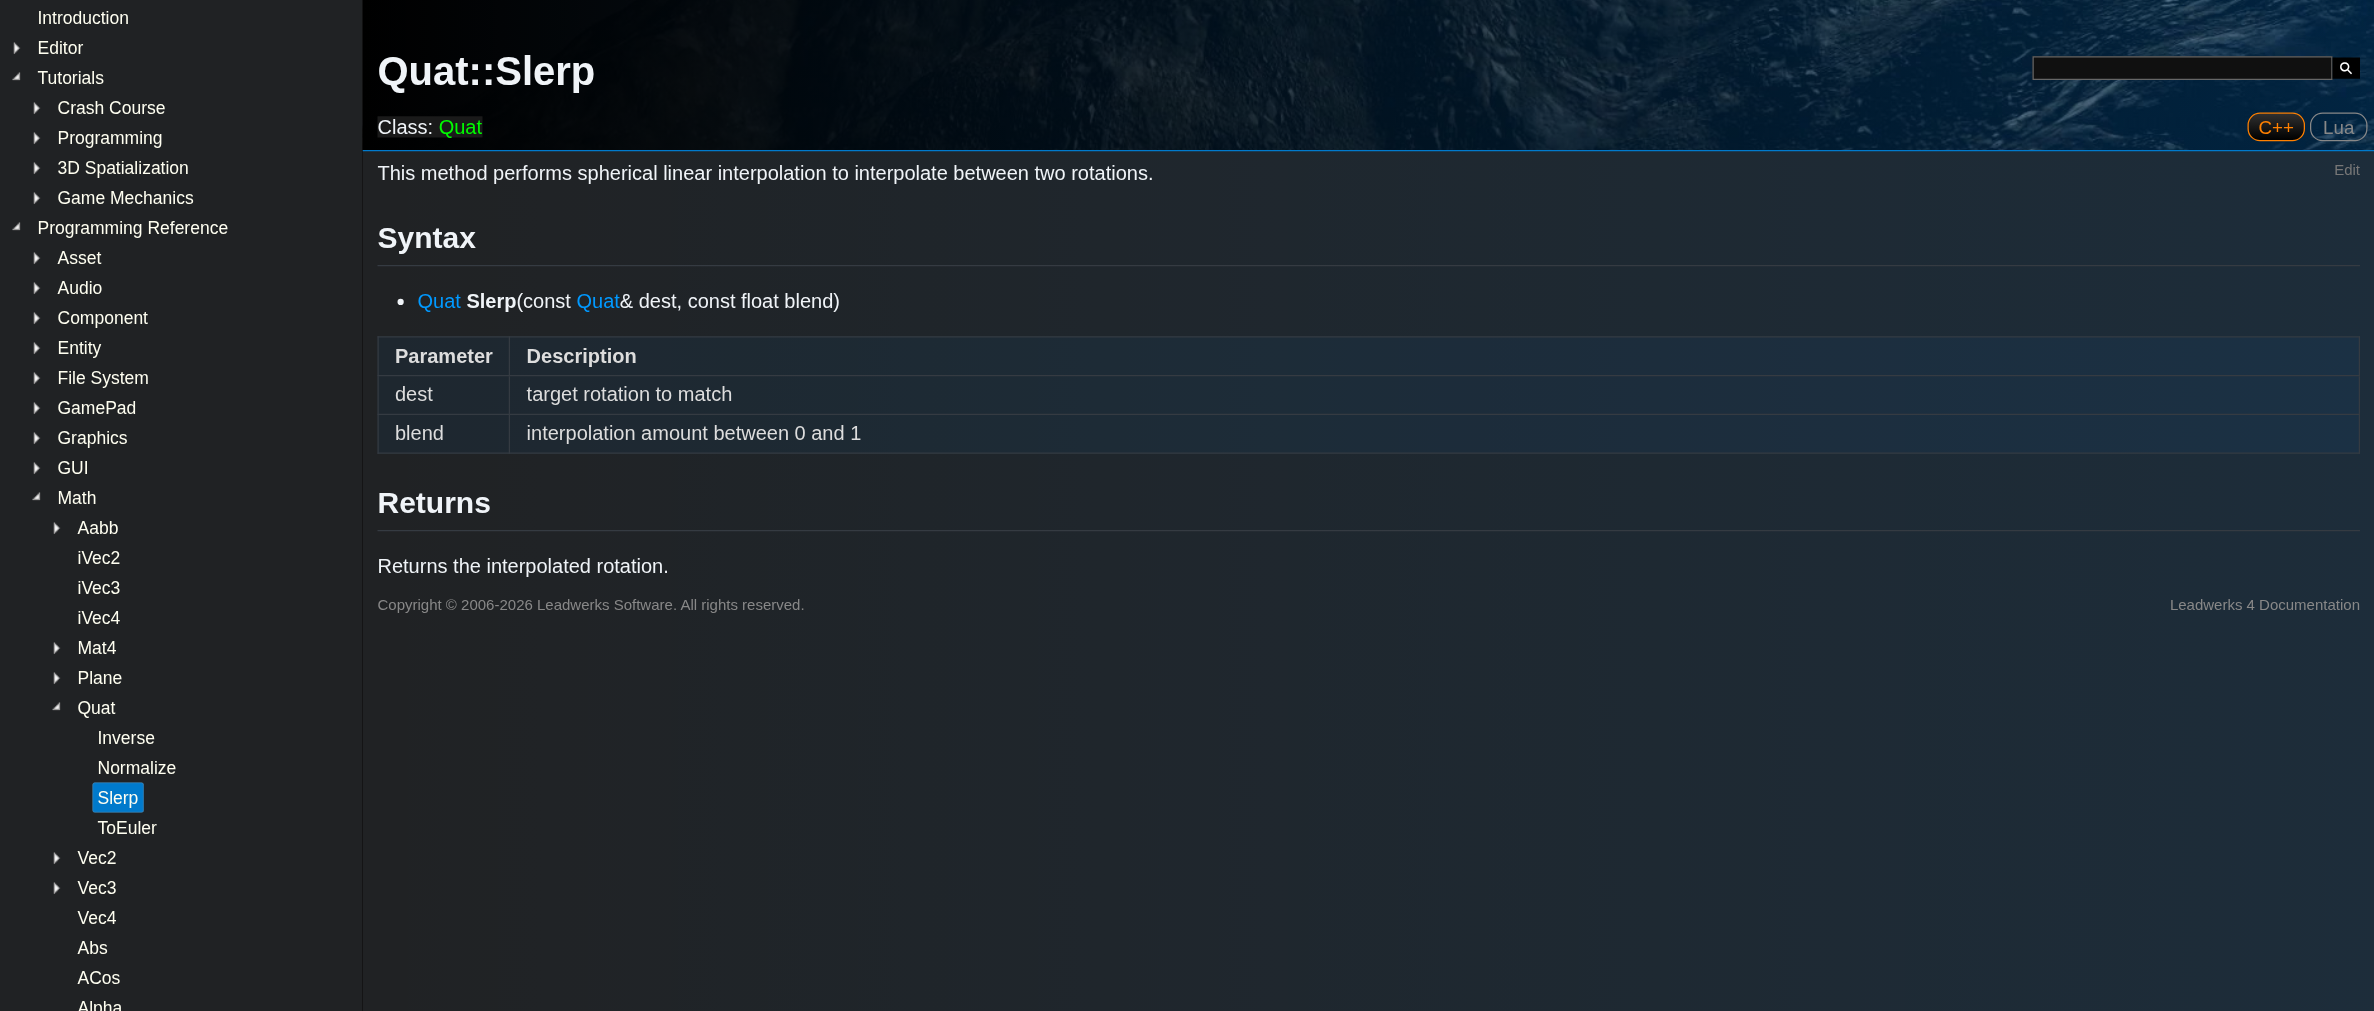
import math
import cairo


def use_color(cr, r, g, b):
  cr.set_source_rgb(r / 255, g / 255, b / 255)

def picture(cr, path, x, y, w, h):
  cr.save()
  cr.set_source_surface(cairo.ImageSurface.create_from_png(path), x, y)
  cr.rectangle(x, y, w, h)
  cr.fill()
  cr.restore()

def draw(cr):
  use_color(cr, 16, 16, 16)
  cr.paint()
  picture(cr, "img_01.png", 0, 0, 362, 1011)
  picture(cr, "img_02.png", 362, 0, 2012, 1011)


surface = cairo.ImageSurface(cairo.FORMAT_RGB24, 2374, 1011)
cr = cairo.Context(surface)
options = cairo.FontOptions()
options.set_hint_metrics(cairo.HINT_METRICS_OFF)
options.set_hint_style(cairo.HINT_STYLE_NONE)
cr.set_font_options(options)
cr.set_miter_limit(4)
draw(cr)
surface.write_to_png("out.png")
